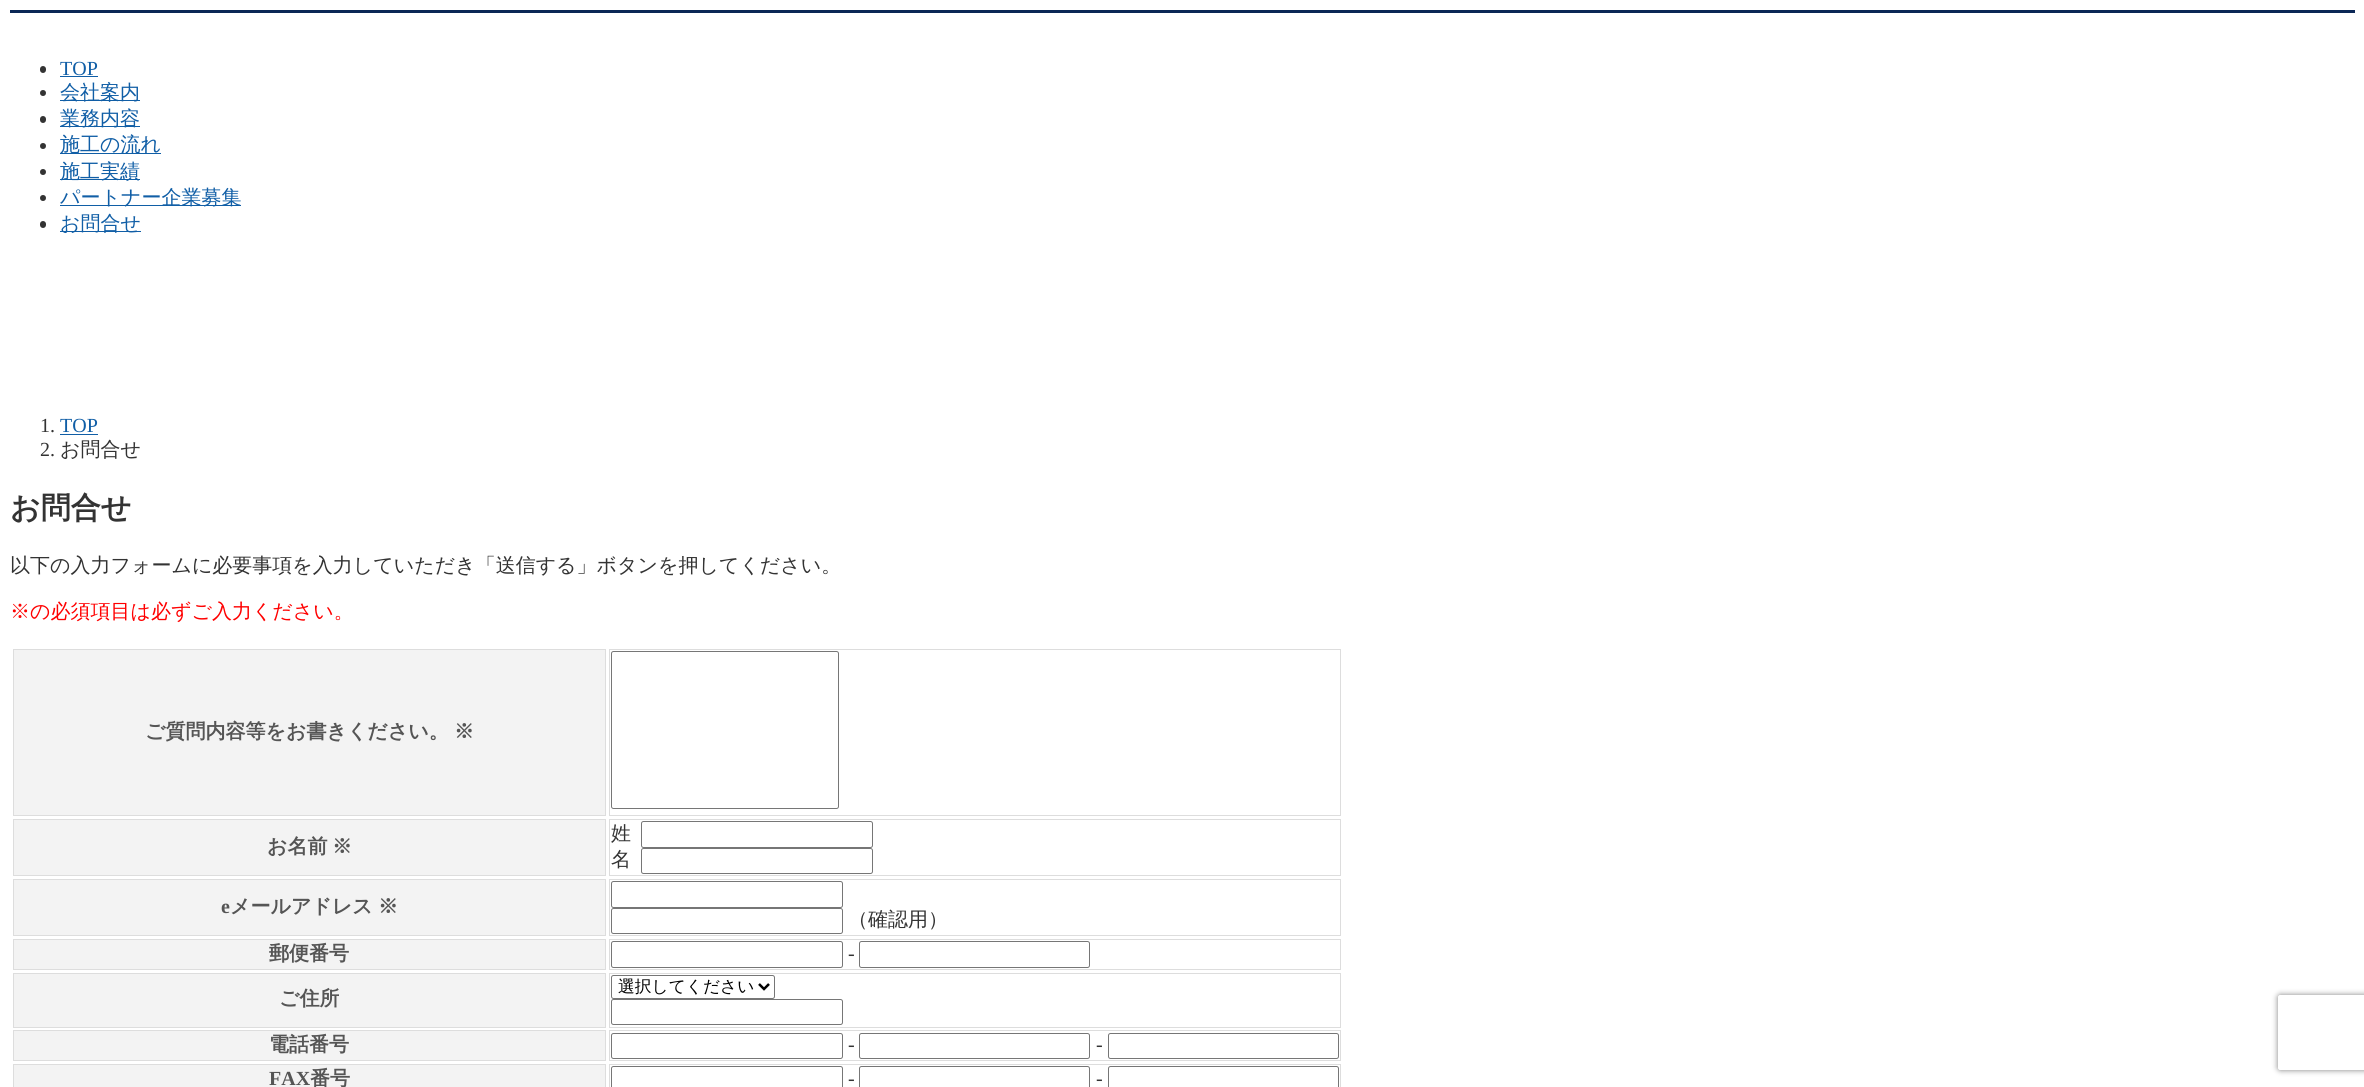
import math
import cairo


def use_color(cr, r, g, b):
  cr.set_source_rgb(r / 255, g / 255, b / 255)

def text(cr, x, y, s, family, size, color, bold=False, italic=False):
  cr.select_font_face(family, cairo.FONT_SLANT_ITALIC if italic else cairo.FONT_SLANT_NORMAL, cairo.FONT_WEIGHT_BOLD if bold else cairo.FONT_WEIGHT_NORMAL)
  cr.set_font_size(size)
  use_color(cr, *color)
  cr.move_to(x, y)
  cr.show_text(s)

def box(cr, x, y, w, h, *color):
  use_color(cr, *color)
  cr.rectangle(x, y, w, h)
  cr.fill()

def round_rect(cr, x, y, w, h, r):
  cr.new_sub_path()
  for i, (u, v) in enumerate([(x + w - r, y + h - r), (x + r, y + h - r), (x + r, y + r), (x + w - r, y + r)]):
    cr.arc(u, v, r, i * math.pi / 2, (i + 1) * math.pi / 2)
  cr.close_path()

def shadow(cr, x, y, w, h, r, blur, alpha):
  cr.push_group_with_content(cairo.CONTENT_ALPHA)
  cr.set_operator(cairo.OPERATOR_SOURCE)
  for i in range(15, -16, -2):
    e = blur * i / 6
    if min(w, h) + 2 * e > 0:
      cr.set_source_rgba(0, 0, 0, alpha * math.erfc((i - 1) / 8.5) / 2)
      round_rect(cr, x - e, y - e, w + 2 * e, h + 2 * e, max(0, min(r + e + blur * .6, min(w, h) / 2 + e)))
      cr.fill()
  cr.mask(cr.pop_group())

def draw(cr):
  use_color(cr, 255, 255, 255)
  cr.paint()
  box(cr, 10, 10, 2345, 3, 11, 39, 86)
  use_color(cr, 51, 51, 51)
  round_rect(cr, 40, 66, 6, 7, 3)
  cr.fill()
  box(cr, 60, 76, 38, 1, 16, 94, 166)
  use_color(cr, 51, 51, 51)
  cr.arc(43, 93, 3, 0, 2 * math.pi)
  cr.fill()
  box(cr, 60, 100, 80, 1, 16, 94, 166)
  use_color(cr, 51, 51, 51)
  round_rect(cr, 40, 116, 6, 7, 3)
  cr.fill()
  box(cr, 60, 126, 80, 1, 16, 94, 166)
  use_color(cr, 51, 51, 51)
  cr.arc(43, 146, 3, 0, 2 * math.pi)
  cr.fill()
  box(cr, 60, 153, 101, 1, 16, 94, 166)
  use_color(cr, 51, 51, 51)
  cr.arc(43, 172, 3, 0, 2 * math.pi)
  cr.fill()
  box(cr, 60, 179, 80, 1, 16, 94, 166)
  use_color(cr, 51, 51, 51)
  cr.arc(43, 198, 3, 0, 2 * math.pi)
  cr.fill()
  box(cr, 60, 205, 181, 1, 16, 94, 166)
  use_color(cr, 51, 51, 51)
  round_rect(cr, 40, 221, 6, 7, 3)
  cr.fill()
  box(cr, 60, 231, 81, 1, 16, 94, 166)
  box(cr, 60, 434, 38, 1, 16, 94, 166)
  use_color(cr, 243, 243, 243)
  cr.rectangle(13.5, 649.5, 592, 166)
  cr.fill_preserve()
  use_color(cr, 221, 221, 221)
  cr.set_line_width(1)
  cr.stroke()
  cr.rectangle(609.5, 649.5, 731, 166)
  cr.stroke()
  round_rect(cr, 611.5, 651.5, 227, 157, 2)
  use_color(cr, 118, 118, 118)
  cr.stroke()
  use_color(cr, 243, 243, 243)
  cr.rectangle(13.5, 819.5, 592, 56)
  cr.fill_preserve()
  use_color(cr, 221, 221, 221)
  cr.stroke()
  cr.rectangle(609.5, 819.5, 731, 56)
  cr.stroke()
  round_rect(cr, 641.5, 821.5, 231, 26, 2)
  use_color(cr, 118, 118, 118)
  cr.stroke()
  round_rect(cr, 641.5, 848.5, 231, 25, 2)
  cr.stroke()
  use_color(cr, 243, 243, 243)
  cr.rectangle(13.5, 879.5, 592, 56)
  cr.fill_preserve()
  use_color(cr, 221, 221, 221)
  cr.stroke()
  cr.rectangle(609.5, 879.5, 731, 56)
  cr.stroke()
  round_rect(cr, 611.5, 881.5, 231, 26, 2)
  use_color(cr, 118, 118, 118)
  cr.stroke()
  round_rect(cr, 611.5, 908.5, 231, 25, 2)
  cr.stroke()
  use_color(cr, 243, 243, 243)
  cr.rectangle(13.5, 939.5, 592, 30)
  cr.fill_preserve()
  use_color(cr, 221, 221, 221)
  cr.stroke()
  cr.rectangle(609.5, 939.5, 731, 30)
  cr.stroke()
  round_rect(cr, 611.5, 941.5, 231, 26, 2)
  use_color(cr, 118, 118, 118)
  cr.stroke()
  round_rect(cr, 859.5, 941.5, 230, 26, 2)
  cr.stroke()
  use_color(cr, 243, 243, 243)
  cr.rectangle(13.5, 973.5, 592, 54)
  cr.fill_preserve()
  use_color(cr, 221, 221, 221)
  cr.stroke()
  cr.rectangle(609.5, 973.5, 731, 54)
  cr.stroke()
  round_rect(cr, 611.5, 975.5, 163, 23, 2)
  use_color(cr, 118, 118, 118)
  cr.stroke()
  cr.new_path()
  cr.move_to(759, 984)
  cr.line_to(764, 989)
  cr.line_to(769, 984)
  use_color(cr, 0, 0, 0)
  cr.set_line_width(2.5)
  cr.stroke()
  round_rect(cr, 611.5, 999.5, 231, 25, 2)
  use_color(cr, 118, 118, 118)
  cr.set_line_width(1)
  cr.stroke()
  use_color(cr, 243, 243, 243)
  cr.rectangle(13.5, 1030.5, 592, 30)
  cr.fill_preserve()
  use_color(cr, 221, 221, 221)
  cr.stroke()
  cr.rectangle(609.5, 1030.5, 731, 30)
  cr.stroke()
  round_rect(cr, 611.5, 1033.5, 231, 25, 2)
  use_color(cr, 118, 118, 118)
  cr.stroke()
  round_rect(cr, 859.5, 1033.5, 230, 25, 2)
  cr.stroke()
  round_rect(cr, 1108.5, 1033.5, 230, 25, 2)
  cr.stroke()
  use_color(cr, 243, 243, 243)
  cr.rectangle(13.5, 1064.5, 592, 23)
  cr.fill_preserve()
  use_color(cr, 221, 221, 221)
  cr.stroke()
  cr.rectangle(609.5, 1064.5, 731, 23)
  cr.stroke()
  round_rect(cr, 611.5, 1066.5, 231, 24, 2)
  use_color(cr, 118, 118, 118)
  cr.stroke()
  round_rect(cr, 859.5, 1066.5, 230, 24, 2)
  cr.stroke()
  round_rect(cr, 1108.5, 1066.5, 230, 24, 2)
  cr.stroke()
  cr.save()
  cr.set_fill_rule(cairo.FILL_RULE_EVEN_ODD)
  cr.new_path()
  cr.move_to(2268, 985)
  cr.line_to(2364, 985)
  cr.line_to(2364, 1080)
  cr.line_to(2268, 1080)
  cr.close_path()
  cr.move_to(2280.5, 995)
  cr.line_to(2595.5, 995)
  cr.curve_to(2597, 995, 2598, 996, 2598, 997.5)
  cr.line_to(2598, 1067.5)
  cr.curve_to(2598, 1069, 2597, 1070, 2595.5, 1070)
  cr.line_to(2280.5, 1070)
  cr.curve_to(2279, 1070, 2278, 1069, 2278, 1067.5)
  cr.line_to(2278, 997.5)
  cr.curve_to(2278, 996, 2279, 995, 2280.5, 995)
  cr.close_path()
  cr.clip()
  use_color(cr, 128, 128, 128)
  shadow(cr, 2278, 995, 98, 75, 2.5, 3, 1)
  cr.restore()
  text(cr, 60, 75, "TOP", "Liberation Serif", 20, (16, 94, 166))
  text(cr, 60, 99, "会社案内", "WenQuanYi Zen Hei Medium", 20, (16, 94, 166))
  text(cr, 60, 125, "業務内容", "WenQuanYi Zen Hei Medium", 20, (16, 94, 166))
  text(cr, 60, 151, "施工の流れ", "WenQuanYi Zen Hei Medium", 20, (16, 94, 166))
  text(cr, 60, 178, "施工実績", "WenQuanYi Zen Hei Medium", 20, (16, 94, 166))
  text(cr, 60, 204, "パートナー企業募集", "WenQuanYi Zen Hei Medium", 20, (16, 94, 166))
  text(cr, 60, 230, "お問合せ", "WenQuanYi Zen Hei Medium", 20, (16, 94, 166))
  text(cr, 40, 432, "1.", "Liberation Serif", 20, (51, 51, 51))
  text(cr, 60, 432, "TOP", "Liberation Serif", 20, (16, 94, 166))
  text(cr, 40, 456, "2.", "Liberation Serif", 20, (51, 51, 51))
  text(cr, 60, 456, "お問合せ", "WenQuanYi Zen Hei Medium", 20, (51, 51, 51))
  text(cr, 10, 518, "お問合せ", "WenQuanYi Zen Hei", 30, (51, 51, 51), bold=True)
  text(cr, 10, 572, "以下の入力フォームに必要事項を入力していただき「送信する」ボタンを押してください。", "WenQuanYi Zen Hei Medium", 20, (51, 51, 51))
  text(cr, 10, 618, "※の必須項目は必ずご入力ください。", "WenQuanYi Zen Hei Medium", 20, (255, 0, 0))
  text(cr, 145, 738, "ご質問内容等をお書きください。", "WenQuanYi Zen Hei", 20, (85, 85, 85), bold=True)
  text(cr, 454, 738, "※", "WenQuanYi Zen Hei", 20, (85, 85, 85), bold=True)
  text(cr, 267, 853, "お名前", "WenQuanYi Zen Hei", 20, (85, 85, 85), bold=True)
  text(cr, 332, 853, "※", "WenQuanYi Zen Hei", 20, (85, 85, 85), bold=True)
  text(cr, 611, 840, "姓", "WenQuanYi Zen Hei Medium", 20, (51, 51, 51))
  text(cr, 611, 866, "名", "WenQuanYi Zen Hei Medium", 20, (51, 51, 51))
  text(cr, 221, 913, "e", "Liberation Serif", 20, (85, 85, 85), bold=True)
  text(cr, 230, 913, "メールアドレス", "WenQuanYi Zen Hei", 20, (85, 85, 85), bold=True)
  text(cr, 378, 913, "※", "WenQuanYi Zen Hei", 20, (85, 85, 85), bold=True)
  text(cr, 848, 926, "（確認用）", "WenQuanYi Zen Hei Medium", 20, (51, 51, 51))
  text(cr, 269, 960, "郵便番号", "WenQuanYi Zen Hei", 20, (85, 85, 85), bold=True)
  text(cr, 848, 960, "-", "Liberation Serif", 20, (51, 51, 51))
  text(cr, 279, 1005, "ご住所", "WenQuanYi Zen Hei", 20, (85, 85, 85), bold=True)
  text(cr, 618, 992, "選択してください", "WenQuanYi Zen Hei Medium", 16.75, (0, 0, 0))
  text(cr, 269, 1051, "電話番号", "WenQuanYi Zen Hei", 20, (85, 85, 85), bold=True)
  text(cr, 848, 1051, "-", "Liberation Serif", 20, (51, 51, 51))
  text(cr, 1096, 1051, "-", "Liberation Serif", 20, (51, 51, 51))
  text(cr, 269, 1085, "FAX", "Liberation Serif", 20, (85, 85, 85), bold=True)
  text(cr, 310, 1085, "番号", "WenQuanYi Zen Hei", 20, (85, 85, 85), bold=True)
  text(cr, 848, 1085, "-", "Liberation Serif", 20, (51, 51, 51))
  text(cr, 1096, 1085, "-", "Liberation Serif", 20, (51, 51, 51))


surface = cairo.ImageSurface(cairo.FORMAT_RGB24, 2364, 1087)
cr = cairo.Context(surface)
options = cairo.FontOptions()
options.set_hint_metrics(cairo.HINT_METRICS_OFF)
options.set_hint_style(cairo.HINT_STYLE_NONE)
cr.set_font_options(options)
cr.set_miter_limit(4)
draw(cr)
surface.write_to_png("out.png")
